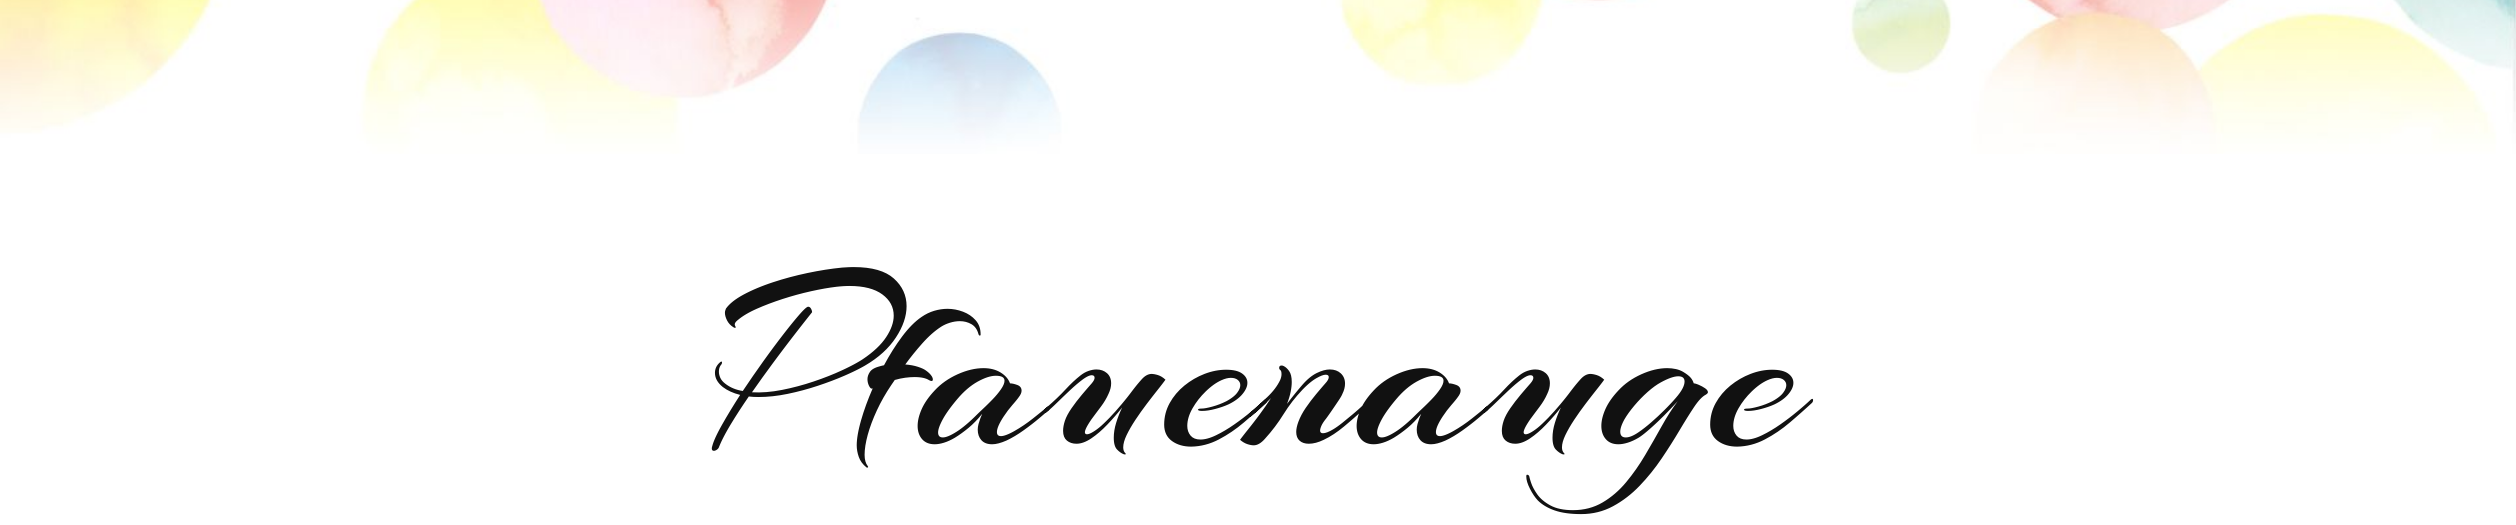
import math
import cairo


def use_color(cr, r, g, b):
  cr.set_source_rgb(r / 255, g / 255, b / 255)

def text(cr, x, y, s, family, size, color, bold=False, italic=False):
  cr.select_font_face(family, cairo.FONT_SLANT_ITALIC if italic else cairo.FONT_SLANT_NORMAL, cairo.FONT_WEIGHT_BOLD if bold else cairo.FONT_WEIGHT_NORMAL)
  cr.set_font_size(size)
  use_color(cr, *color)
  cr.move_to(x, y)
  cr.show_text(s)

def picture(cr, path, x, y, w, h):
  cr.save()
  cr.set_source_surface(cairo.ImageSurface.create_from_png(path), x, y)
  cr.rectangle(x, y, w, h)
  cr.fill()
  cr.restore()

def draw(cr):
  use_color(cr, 255, 255, 255)
  cr.paint()
  picture(cr, "img_01.png", 0, 0, 2516, 154)
  text(cr, 716, 444, "Pfauenauge", "Arizonia", 262.5, (17, 17, 17))


surface = cairo.ImageSurface(cairo.FORMAT_RGB24, 2516, 525)
cr = cairo.Context(surface)
options = cairo.FontOptions()
options.set_hint_metrics(cairo.HINT_METRICS_OFF)
options.set_hint_style(cairo.HINT_STYLE_NONE)
cr.set_font_options(options)
cr.set_miter_limit(4)
draw(cr)
surface.write_to_png("out.png")
